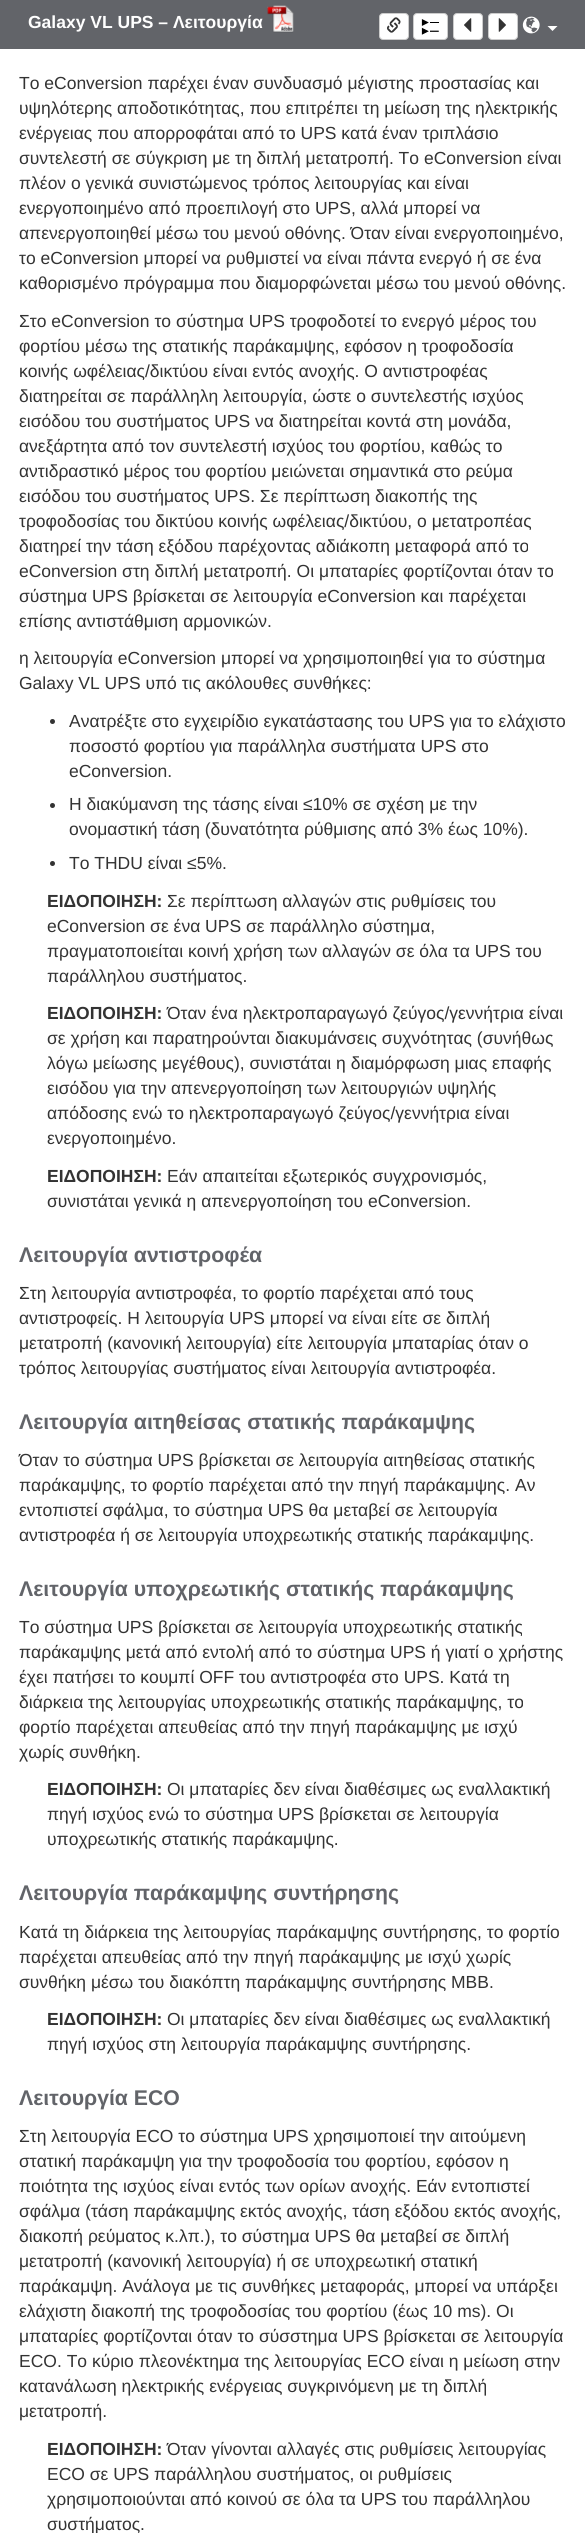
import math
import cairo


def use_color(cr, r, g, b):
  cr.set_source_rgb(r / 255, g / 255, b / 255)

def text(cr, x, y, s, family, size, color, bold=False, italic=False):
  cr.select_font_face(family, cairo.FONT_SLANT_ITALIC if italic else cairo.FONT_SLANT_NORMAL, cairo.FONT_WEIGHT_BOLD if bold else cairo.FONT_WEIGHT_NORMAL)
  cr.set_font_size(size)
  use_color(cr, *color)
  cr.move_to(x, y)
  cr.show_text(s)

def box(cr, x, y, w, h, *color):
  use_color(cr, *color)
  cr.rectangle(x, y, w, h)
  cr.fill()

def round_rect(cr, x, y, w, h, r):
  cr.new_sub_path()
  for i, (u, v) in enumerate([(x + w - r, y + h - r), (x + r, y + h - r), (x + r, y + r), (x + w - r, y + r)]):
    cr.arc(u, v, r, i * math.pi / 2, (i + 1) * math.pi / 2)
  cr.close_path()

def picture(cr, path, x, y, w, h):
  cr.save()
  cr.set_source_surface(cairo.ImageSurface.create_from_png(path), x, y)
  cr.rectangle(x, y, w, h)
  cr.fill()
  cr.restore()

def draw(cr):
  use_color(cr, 255, 255, 255)
  cr.paint()
  box(cr, 0, 0, 585, 49, 98, 100, 105)
  picture(cr, "img_01.png", 267, 5, 27, 28)
  use_color(cr, 255, 255, 255)
  round_rect(cr, 379.5, 13.5, 29, 26, 3.5)
  cr.fill_preserve()
  use_color(cr, 204, 204, 204)
  cr.set_line_width(1)
  cr.stroke()
  picture(cr, "img_02.png", 387, 17, 14, 16)
  use_color(cr, 255, 255, 255)
  round_rect(cr, 413.5, 13.5, 34, 26, 3.5)
  cr.fill_preserve()
  use_color(cr, 204, 204, 204)
  cr.stroke()
  picture(cr, "img_03.png", 421, 19, 18, 16)
  use_color(cr, 255, 255, 255)
  round_rect(cr, 453.5, 13.5, 29, 26, 3.5)
  cr.fill_preserve()
  use_color(cr, 204, 204, 204)
  cr.stroke()
  picture(cr, "img_04.png", 464, 18, 8, 14)
  use_color(cr, 255, 255, 255)
  round_rect(cr, 488.5, 13.5, 29, 26, 3.5)
  cr.fill_preserve()
  use_color(cr, 204, 204, 204)
  cr.stroke()
  picture(cr, "img_05.png", 498, 18, 8, 14)
  picture(cr, "img_06.png", 522, 16, 18, 18)
  use_color(cr, 255, 255, 255)
  cr.new_path()
  cr.move_to(547.5, 26)
  cr.line_to(557.5, 26)
  cr.line_to(552.5, 31)
  cr.close_path()
  cr.fill()
  use_color(cr, 51, 51, 51)
  cr.arc(52.5, 721.5, 2.5, 0, 2 * math.pi)
  cr.fill()
  cr.arc(52.5, 805.5, 2.5, 0, 2 * math.pi)
  cr.fill()
  cr.arc(52.5, 863.5, 2.5, 0, 2 * math.pi)
  cr.fill()
  text(cr, 28, 28, "Galaxy VL UPS – Λειτουργία", "Liberation Sans", 17.5, (255, 255, 255), bold=True)
  text(cr, 19, 89, "Το eConversion παρέχει έναν συνδυασμό μέγιστης προστασίας και", "Liberation Sans", 17.5, (51, 51, 51))
  text(cr, 19, 114, "υψηλότερης αποδοτικότητας, που επιτρέπει τη μείωση της ηλεκτρικής", "Liberation Sans", 17.5, (51, 51, 51))
  text(cr, 19, 139, "ενέργειας που απορροφάται από το UPS κατά έναν τριπλάσιο", "Liberation Sans", 17.5, (51, 51, 51))
  text(cr, 19, 164, "συντελεστή σε σύγκριση με τη διπλή μετατροπή. Το eConversion είναι", "Liberation Sans", 17.5, (51, 51, 51))
  text(cr, 19, 189, "πλέον ο γενικά συνιστώμενος τρόπος λειτουργίας και είναι", "Liberation Sans", 17.5, (51, 51, 51))
  text(cr, 19, 214, "ενεργοποιημένο από προεπιλογή στο UPS, αλλά μπορεί να", "Liberation Sans", 17.5, (51, 51, 51))
  text(cr, 19, 239, "απενεργοποιηθεί μέσω του μενού οθόνης. Όταν είναι ενεργοποιημένο,", "Liberation Sans", 17.5, (51, 51, 51))
  text(cr, 19, 264, "το eConversion μπορεί να ρυθμιστεί να είναι πάντα ενεργό ή σε ένα", "Liberation Sans", 17.5, (51, 51, 51))
  text(cr, 19, 289, "καθορισμένο πρόγραμμα που διαμορφώνεται μέσω του μενού οθόνης.", "Liberation Sans", 17.5, (51, 51, 51))
  text(cr, 19, 327, "Στο eConversion το σύστημα UPS τροφοδοτεί το ενεργό μέρος του", "Liberation Sans", 17.5, (51, 51, 51))
  text(cr, 19, 352, "φορτίου μέσω της στατικής παράκαμψης, εφόσον η τροφοδοσία", "Liberation Sans", 17.5, (51, 51, 51))
  text(cr, 19, 377, "κοινής ωφέλειας/δικτύου είναι εντός ανοχής. Ο αντιστροφέας", "Liberation Sans", 17.5, (51, 51, 51))
  text(cr, 19, 402, "διατηρείται σε παράλληλη λειτουργία, ώστε ο συντελεστής ισχύος", "Liberation Sans", 17.5, (51, 51, 51))
  text(cr, 19, 427, "εισόδου του συστήματος UPS να διατηρείται κοντά στη μονάδα,", "Liberation Sans", 17.5, (51, 51, 51))
  text(cr, 19, 452, "ανεξάρτητα από τον συντελεστή ισχύος του φορτίου, καθώς το", "Liberation Sans", 17.5, (51, 51, 51))
  text(cr, 19, 477, "αντιδραστικό μέρος του φορτίου μειώνεται σημαντικά στο ρεύμα", "Liberation Sans", 17.5, (51, 51, 51))
  text(cr, 19, 502, "εισόδου του συστήματος UPS. Σε περίπτωση διακοπής της", "Liberation Sans", 17.5, (51, 51, 51))
  text(cr, 19, 527, "τροφοδοσίας του δικτύου κοινής ωφέλειας/δικτύου, ο μετατροπέας", "Liberation Sans", 17.5, (51, 51, 51))
  text(cr, 19, 552, "διατηρεί την τάση εξόδου παρέχοντας αδιάκοπη μεταφορά από το", "Liberation Sans", 17.5, (51, 51, 51))
  text(cr, 19, 577, "eConversion στη διπλή μετατροπή. Οι μπαταρίες φορτίζονται όταν το", "Liberation Sans", 17.5, (51, 51, 51))
  text(cr, 19, 602, "σύστημα UPS βρίσκεται σε λειτουργία eConversion και παρέχεται", "Liberation Sans", 17.5, (51, 51, 51))
  text(cr, 19, 627, "επίσης αντιστάθμιση αρμονικών.", "Liberation Sans", 17.5, (51, 51, 51))
  text(cr, 19, 664, "η λειτουργία eConversion μπορεί να χρησιμοποιηθεί για το σύστημα", "Liberation Sans", 17.5, (51, 51, 51))
  text(cr, 19, 689, "Galaxy VL UPS υπό τις ακόλουθες συνθήκες:", "Liberation Sans", 17.5, (51, 51, 51))
  text(cr, 69, 727, "Ανατρέξτε στο εγχειρίδιο εγκατάστασης του UPS για το ελάχιστο", "Liberation Sans", 17.5, (51, 51, 51))
  text(cr, 69, 752, "ποσοστό φορτίου για παράλληλα συστήματα UPS στο", "Liberation Sans", 17.5, (51, 51, 51))
  text(cr, 69, 777, "eConversion.", "Liberation Sans", 17.5, (51, 51, 51))
  text(cr, 69, 810, "Η διακύμανση της τάσης είναι ≤10% σε σχέση με την", "Liberation Sans", 17.5, (51, 51, 51))
  text(cr, 69, 835, "ονομαστική τάση (δυνατότητα ρύθμισης από 3% έως 10%).", "Liberation Sans", 17.5, (51, 51, 51))
  text(cr, 69, 869, "Το THDU είναι ≤5%.", "Liberation Sans", 17.5, (51, 51, 51))
  text(cr, 47, 907, "ΕΙΔΟΠΟΙΗΣΗ:", "Liberation Sans", 17.5, (51, 51, 51), bold=True)
  text(cr, 167, 907, "Σε περίπτωση αλλαγών στις ρυθμίσεις του", "Liberation Sans", 17.5, (51, 51, 51))
  text(cr, 47, 932, "eConversion σε ένα UPS σε παράλληλο σύστημα,", "Liberation Sans", 17.5, (51, 51, 51))
  text(cr, 47, 957, "πραγματοποιείται κοινή χρήση των αλλαγών σε όλα τα UPS του", "Liberation Sans", 17.5, (51, 51, 51))
  text(cr, 47, 982, "παράλληλου συστήματος.", "Liberation Sans", 17.5, (51, 51, 51))
  text(cr, 47, 1019, "ΕΙΔΟΠΟΙΗΣΗ:", "Liberation Sans", 17.5, (51, 51, 51), bold=True)
  text(cr, 167, 1019, "Όταν ένα ηλεκτροπαραγωγό ζεύγος/γεννήτρια είναι", "Liberation Sans", 17.5, (51, 51, 51))
  text(cr, 47, 1044, "σε χρήση και παρατηρούνται διακυμάνσεις συχνότητας (συνήθως", "Liberation Sans", 17.5, (51, 51, 51))
  text(cr, 47, 1069, "λόγω μείωσης μεγέθους), συνιστάται η διαμόρφωση μιας επαφής", "Liberation Sans", 17.5, (51, 51, 51))
  text(cr, 47, 1094, "εισόδου για την απενεργοποίηση των λειτουργιών υψηλής", "Liberation Sans", 17.5, (51, 51, 51))
  text(cr, 47, 1119, "απόδοσης ενώ το ηλεκτροπαραγωγό ζεύγος/γεννήτρια είναι", "Liberation Sans", 17.5, (51, 51, 51))
  text(cr, 47, 1144, "ενεργοποιημένο.", "Liberation Sans", 17.5, (51, 51, 51))
  text(cr, 47, 1182, "ΕΙΔΟΠΟΙΗΣΗ:", "Liberation Sans", 17.5, (51, 51, 51), bold=True)
  text(cr, 167, 1182, "Εάν απαιτείται εξωτερικός συγχρονισμός,", "Liberation Sans", 17.5, (51, 51, 51))
  text(cr, 47, 1207, "συνιστάται γενικά η απενεργοποίηση του eConversion.", "Liberation Sans", 17.5, (51, 51, 51))
  text(cr, 19, 1262, "Λειτουργία αντιστροφέα", "Liberation Sans", 21.25, (98, 100, 105), bold=True)
  text(cr, 19, 1299, "Στη λειτουργία αντιστροφέα, το φορτίο παρέχεται από τους", "Liberation Sans", 17.5, (51, 51, 51))
  text(cr, 19, 1324, "αντιστροφείς. Η λειτουργία UPS μπορεί να είναι είτε σε διπλή", "Liberation Sans", 17.5, (51, 51, 51))
  text(cr, 19, 1349, "μετατροπή (κανονική λειτουργία) είτε λειτουργία μπαταρίας όταν ο", "Liberation Sans", 17.5, (51, 51, 51))
  text(cr, 19, 1374, "τρόπος λειτουργίας συστήματος είναι λειτουργία αντιστροφέα.", "Liberation Sans", 17.5, (51, 51, 51))
  text(cr, 19, 1429, "Λειτουργία αιτηθείσας στατικής παράκαμψης", "Liberation Sans", 21.25, (98, 100, 105), bold=True)
  text(cr, 19, 1466, "Όταν το σύστημα UPS βρίσκεται σε λειτουργία αιτηθείσας στατικής", "Liberation Sans", 17.5, (51, 51, 51))
  text(cr, 19, 1491, "παράκαμψης, το φορτίο παρέχεται από την πηγή παράκαμψης. Αν", "Liberation Sans", 17.5, (51, 51, 51))
  text(cr, 19, 1516, "εντοπιστεί σφάλμα, το σύστημα UPS θα μεταβεί σε λειτουργία", "Liberation Sans", 17.5, (51, 51, 51))
  text(cr, 19, 1541, "αντιστροφέα ή σε λειτουργία υποχρεωτικής στατικής παράκαμψης.", "Liberation Sans", 17.5, (51, 51, 51))
  text(cr, 19, 1596, "Λειτουργία υποχρεωτικής στατικής παράκαμψης", "Liberation Sans", 21.25, (98, 100, 105), bold=True)
  text(cr, 19, 1633, "Το σύστημα UPS βρίσκεται σε λειτουργία υποχρεωτικής στατικής", "Liberation Sans", 17.5, (51, 51, 51))
  text(cr, 19, 1658, "παράκαμψης μετά από εντολή από το σύστημα UPS ή γιατί ο χρήστης", "Liberation Sans", 17.5, (51, 51, 51))
  text(cr, 19, 1683, "έχει πατήσει το κουμπί OFF του αντιστροφέα στο UPS. Κατά τη", "Liberation Sans", 17.5, (51, 51, 51))
  text(cr, 19, 1708, "διάρκεια της λειτουργίας υποχρεωτικής στατικής παράκαμψης, το", "Liberation Sans", 17.5, (51, 51, 51))
  text(cr, 19, 1733, "φορτίο παρέχεται απευθείας από την πηγή παράκαμψης με ισχύ", "Liberation Sans", 17.5, (51, 51, 51))
  text(cr, 19, 1758, "χωρίς συνθήκη.", "Liberation Sans", 17.5, (51, 51, 51))
  text(cr, 47, 1795, "ΕΙΔΟΠΟΙΗΣΗ:", "Liberation Sans", 17.5, (51, 51, 51), bold=True)
  text(cr, 167, 1795, "Οι μπαταρίες δεν είναι διαθέσιμες ως εναλλακτική", "Liberation Sans", 17.5, (51, 51, 51))
  text(cr, 47, 1820, "πηγή ισχύος ενώ το σύστημα UPS βρίσκεται σε λειτουργία", "Liberation Sans", 17.5, (51, 51, 51))
  text(cr, 47, 1845, "υποχρεωτικής στατικής παράκαμψης.", "Liberation Sans", 17.5, (51, 51, 51))
  text(cr, 19, 1900, "Λειτουργία παράκαμψης συντήρησης", "Liberation Sans", 21.25, (98, 100, 105), bold=True)
  text(cr, 19, 1938, "Κατά τη διάρκεια της λειτουργίας παράκαμψης συντήρησης, το φορτίο", "Liberation Sans", 17.5, (51, 51, 51))
  text(cr, 19, 1963, "παρέχεται απευθείας από την πηγή παράκαμψης με ισχύ χωρίς", "Liberation Sans", 17.5, (51, 51, 51))
  text(cr, 19, 1988, "συνθήκη μέσω του διακόπτη παράκαμψης συντήρησης MBB.", "Liberation Sans", 17.5, (51, 51, 51))
  text(cr, 47, 2025, "ΕΙΔΟΠΟΙΗΣΗ:", "Liberation Sans", 17.5, (51, 51, 51), bold=True)
  text(cr, 167, 2025, "Οι μπαταρίες δεν είναι διαθέσιμες ως εναλλακτική", "Liberation Sans", 17.5, (51, 51, 51))
  text(cr, 47, 2050, "πηγή ισχύος στη λειτουργία παράκαμψης συντήρησης.", "Liberation Sans", 17.5, (51, 51, 51))
  text(cr, 19, 2105, "Λειτουργία ECO", "Liberation Sans", 21.25, (98, 100, 105), bold=True)
  text(cr, 19, 2142, "Στη λειτουργία ECO το σύστημα UPS χρησιμοποιεί την αιτούμενη", "Liberation Sans", 17.5, (51, 51, 51))
  text(cr, 19, 2167, "στατική παράκαμψη για την τροφοδοσία του φορτίου, εφόσον η", "Liberation Sans", 17.5, (51, 51, 51))
  text(cr, 19, 2192, "ποιότητα της ισχύος είναι εντός των ορίων ανοχής. Εάν εντοπιστεί", "Liberation Sans", 17.5, (51, 51, 51))
  text(cr, 19, 2217, "σφάλμα (τάση παράκαμψης εκτός ανοχής, τάση εξόδου εκτός ανοχής,", "Liberation Sans", 17.5, (51, 51, 51))
  text(cr, 19, 2242, "διακοπή ρεύματος κ.λπ.), το σύστημα UPS θα μεταβεί σε διπλή", "Liberation Sans", 17.5, (51, 51, 51))
  text(cr, 19, 2267, "μετατροπή (κανονική λειτουργία) ή σε υποχρεωτική στατική", "Liberation Sans", 17.5, (51, 51, 51))
  text(cr, 19, 2292, "παράκαμψη. Ανάλογα με τις συνθήκες μεταφοράς, μπορεί να υπάρξει", "Liberation Sans", 17.5, (51, 51, 51))
  text(cr, 19, 2317, "ελάχιστη διακοπή της τροφοδοσίας του φορτίου (έως 10 ms). Οι", "Liberation Sans", 17.5, (51, 51, 51))
  text(cr, 19, 2342, "μπαταρίες φορτίζονται όταν το σύσστημα UPS βρίσκεται σε λειτουργία", "Liberation Sans", 17.5, (51, 51, 51))
  text(cr, 19, 2367, "ECO. Το κύριο πλεονέκτημα της λειτουργίας ECO είναι η μείωση στην", "Liberation Sans", 17.5, (51, 51, 51))
  text(cr, 19, 2392, "κατανάλωση ηλεκτρικής ενέργειας συγκρινόμενη με τη διπλή", "Liberation Sans", 17.5, (51, 51, 51))
  text(cr, 19, 2417, "μετατροπή.", "Liberation Sans", 17.5, (51, 51, 51))
  text(cr, 47, 2455, "ΕΙΔΟΠΟΙΗΣΗ:", "Liberation Sans", 17.5, (51, 51, 51), bold=True)
  text(cr, 167, 2455, "Όταν γίνονται αλλαγές στις ρυθμίσεις λειτουργίας", "Liberation Sans", 17.5, (51, 51, 51))
  text(cr, 47, 2480, "ECO σε UPS παράλληλου συστήματος, οι ρυθμίσεις", "Liberation Sans", 17.5, (51, 51, 51))
  text(cr, 47, 2505, "χρησιμοποιούνται από κοινού σε όλα τα UPS του παράλληλου", "Liberation Sans", 17.5, (51, 51, 51))
  text(cr, 47, 2530, "συστήματος.", "Liberation Sans", 17.5, (51, 51, 51))


surface = cairo.ImageSurface(cairo.FORMAT_RGB24, 585, 2533)
cr = cairo.Context(surface)
options = cairo.FontOptions()
options.set_hint_metrics(cairo.HINT_METRICS_OFF)
options.set_hint_style(cairo.HINT_STYLE_NONE)
cr.set_font_options(options)
cr.set_miter_limit(4)
draw(cr)
surface.write_to_png("out.png")
